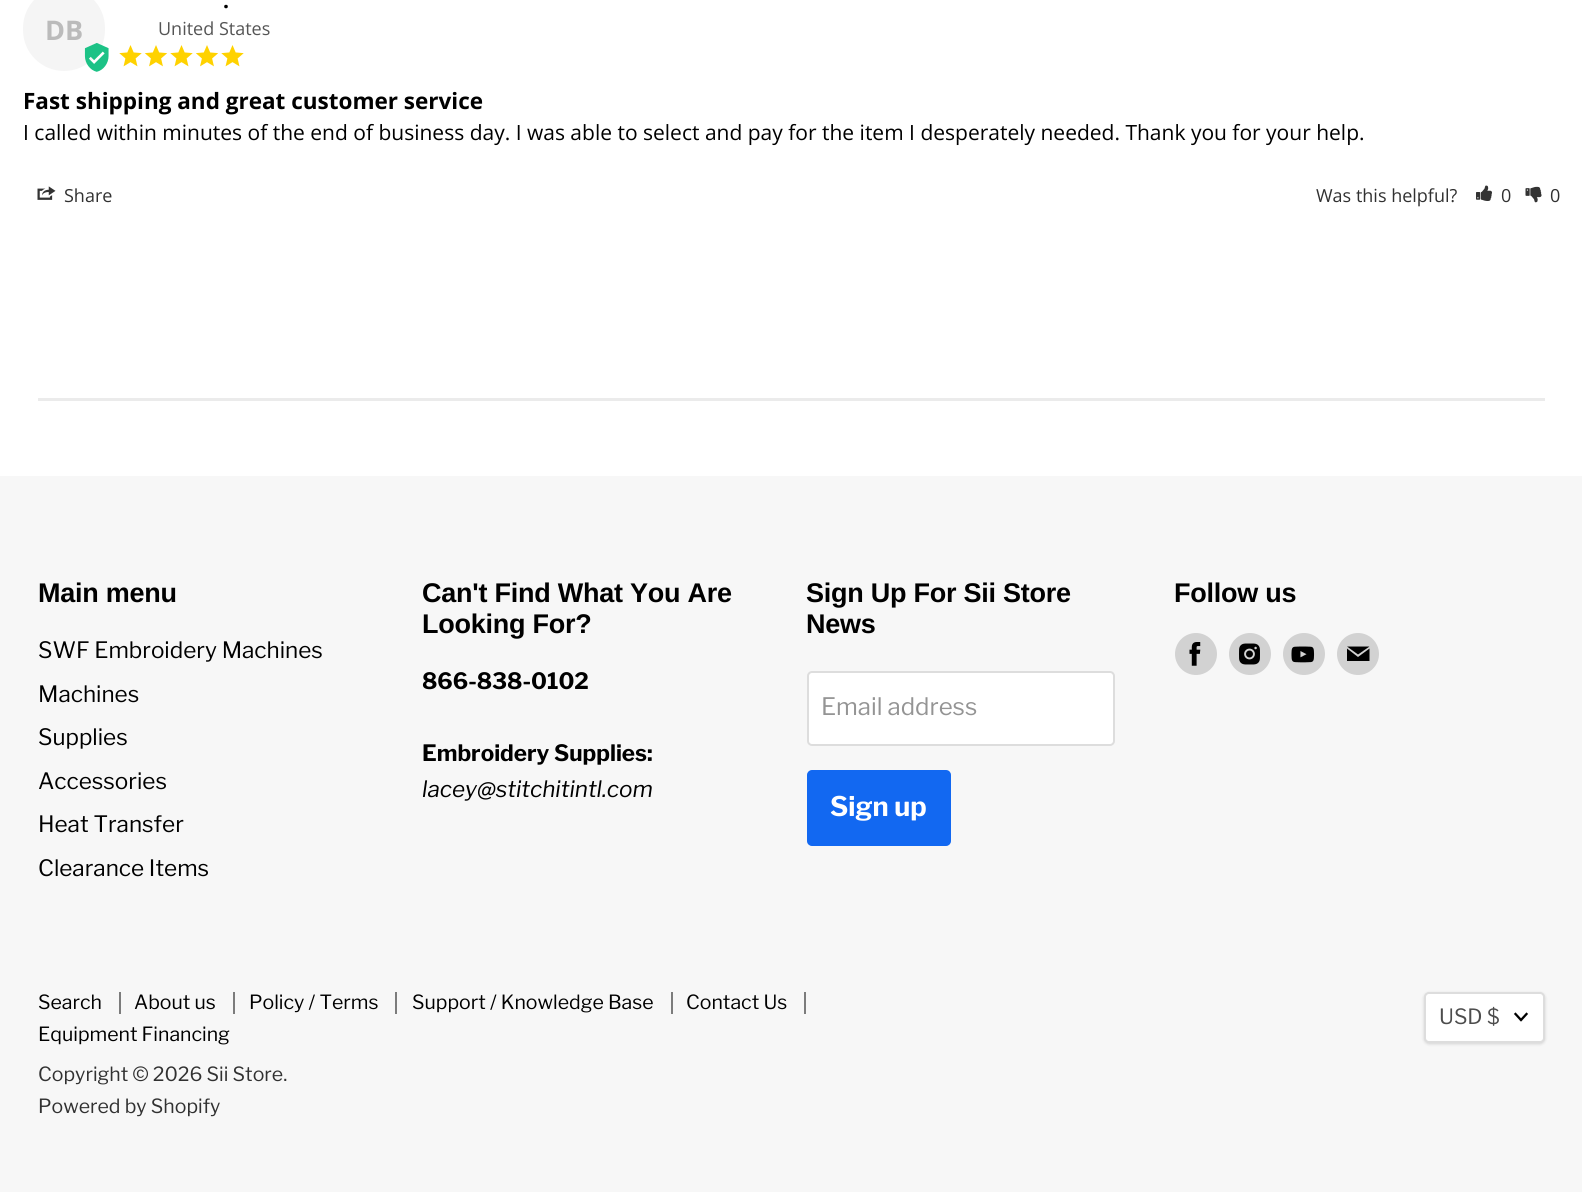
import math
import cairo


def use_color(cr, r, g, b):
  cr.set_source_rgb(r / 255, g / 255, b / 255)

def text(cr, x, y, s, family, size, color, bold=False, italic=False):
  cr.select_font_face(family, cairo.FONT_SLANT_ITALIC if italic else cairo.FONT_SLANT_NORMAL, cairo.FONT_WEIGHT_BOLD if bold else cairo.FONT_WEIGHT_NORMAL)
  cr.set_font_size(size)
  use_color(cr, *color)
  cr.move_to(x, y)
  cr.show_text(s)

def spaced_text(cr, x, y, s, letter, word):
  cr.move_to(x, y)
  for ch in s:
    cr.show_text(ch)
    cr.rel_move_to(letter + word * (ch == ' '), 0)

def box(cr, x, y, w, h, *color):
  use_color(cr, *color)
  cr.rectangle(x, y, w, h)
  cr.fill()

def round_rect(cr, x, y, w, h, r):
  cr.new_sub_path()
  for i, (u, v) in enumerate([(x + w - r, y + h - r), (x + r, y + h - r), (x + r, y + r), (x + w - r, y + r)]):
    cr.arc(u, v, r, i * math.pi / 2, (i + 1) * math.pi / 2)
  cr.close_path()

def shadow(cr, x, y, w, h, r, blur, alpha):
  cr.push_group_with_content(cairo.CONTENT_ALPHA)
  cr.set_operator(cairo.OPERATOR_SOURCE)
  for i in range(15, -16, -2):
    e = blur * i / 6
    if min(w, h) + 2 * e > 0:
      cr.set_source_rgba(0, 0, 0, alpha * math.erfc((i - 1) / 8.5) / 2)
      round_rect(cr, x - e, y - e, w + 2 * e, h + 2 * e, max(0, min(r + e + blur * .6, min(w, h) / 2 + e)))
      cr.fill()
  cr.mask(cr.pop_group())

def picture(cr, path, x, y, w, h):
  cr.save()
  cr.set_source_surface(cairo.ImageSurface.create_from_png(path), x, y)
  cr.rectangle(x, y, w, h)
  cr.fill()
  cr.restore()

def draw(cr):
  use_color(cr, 255, 255, 255)
  cr.paint()
  use_color(cr, 245, 245, 245)
  round_rect(cr, 23, -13, 82, 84, 41)
  cr.fill()
  picture(cr, "img_01.png", 84, 43, 25, 29)
  picture(cr, "img_02.png", 119, 45, 23, 22)
  picture(cr, "img_03.png", 144, 45, 24, 22)
  picture(cr, "img_02.png", 170, 45, 23, 22)
  picture(cr, "img_03.png", 195, 45, 24, 22)
  picture(cr, "img_02.png", 221, 45, 23, 22)
  picture(cr, "img_04.png", 37, 186, 19, 14)
  picture(cr, "img_05.png", 1476, 185, 16, 16)
  picture(cr, "img_06.png", 1525, 186, 17, 17)
  cr.set_source_rgba(0.502, 0.502, 0.502, 0.16)
  cr.rectangle(38, 398, 1507, 3)
  cr.fill()
  box(cr, 0, 476, 1582, 716, 247, 247, 247)
  use_color(cr, 255, 255, 255)
  round_rect(cr, 808, 672, 306, 73, 4)
  cr.fill_preserve()
  use_color(cr, 221, 221, 221)
  cr.stroke()
  use_color(cr, 18, 104, 241)
  round_rect(cr, 808, 771, 142, 74, 4)
  cr.fill_preserve()
  cr.stroke()
  use_color(cr, 210, 210, 210)
  cr.arc(1196, 654, 21, 0, 2 * math.pi)
  cr.fill()
  picture(cr, "img_07.png", 1189, 642, 12, 24)
  cr.arc(1250, 654, 21, 0, 2 * math.pi)
  cr.fill()
  picture(cr, "img_08.png", 1239, 643, 21, 22)
  cr.arc(1304, 654, 21, 0, 2 * math.pi)
  cr.fill()
  picture(cr, "img_09.png", 1291, 646, 24, 17)
  cr.arc(1358, 654, 21, 0, 2 * math.pi)
  cr.fill()
  use_color(cr, 0, 0, 0)
  cr.set_fill_rule(cairo.FILL_RULE_EVEN_ODD)
  cr.new_path()
  cr.move_to(1369.5, 646.5)
  cr.line_to(1347, 646.5)
  cr.line_to(1358, 654.5)
  cr.close_path()
  cr.move_to(1358, 657)
  cr.line_to(1347, 648.5)
  cr.line_to(1347, 661)
  cr.line_to(1369.5, 661)
  cr.line_to(1369.5, 648.5)
  cr.close_path()
  cr.fill()
  box(cr, 119, 992, 2, 22, 124, 124, 124)
  box(cr, 233, 992, 2, 22, 124, 124, 124)
  box(cr, 395, 992, 2, 22, 124, 124, 124)
  box(cr, 671, 992, 2, 22, 124, 124, 124)
  box(cr, 804, 992, 2, 22, 124, 124, 124)
  use_color(cr, 0, 0, 0)
  shadow(cr, 1424, 993, 121, 51, 5, 1.5, 0.15)
  use_color(cr, 255, 255, 255)
  round_rect(cr, 1425, 993, 119, 49, 4)
  cr.fill_preserve()
  use_color(cr, 221, 221, 221)
  cr.stroke()
  cr.new_path()
  cr.move_to(1521, 1020)
  cr.line_to(1526.5, 1014)
  cr.move_to(1521, 1020)
  cr.line_to(1515.5, 1014)
  use_color(cr, 0, 0, 0)
  cr.set_line_width(2.3)
  cr.set_line_cap(cairo.LINE_CAP_SQUARE)
  cr.stroke()
  text(cr, 223, 8, ".", "Open Sans", 21, (0, 0, 0), bold=True)
  text(cr, 45, 40, "DB", "Open Sans", 27, (187, 187, 187), bold=True)
  text(cr, 158, 35, "United States", "Open Sans", 18, (85, 85, 85))
  text(cr, 23, 109, "Fast shipping and great customer service", "Open Sans", 22.5, (0, 0, 0), bold=True)
  text(cr, 23, 140, "I called within minutes of the end of business day. I was able to select and pay for the item I desperately needed. Thank you for your help.", "Open Sans", 21, (0, 0, 0))
  text(cr, 64, 202, "Share", "Open Sans", 18, (49, 49, 49))
  text(cr, 1316, 202, "Was this helpful?", "Open Sans", 18, (49, 49, 49))
  text(cr, 1501, 202, "0", "Open Sans", 18, (49, 49, 49))
  text(cr, 1550, 202, "0", "Open Sans", 18, (49, 49, 49))
  cr.select_font_face("Arimo", cairo.FONT_SLANT_NORMAL, cairo.FONT_WEIGHT_BOLD)
  cr.set_font_size(27)
  use_color(cr, 0, 0, 0)
  spaced_text(cr, 38, 602, "Main menu", -0.25, 0)
  text(cr, 38, 658, "SWF Embroidery Machines", "Libre Franklin", 22.5, (0, 0, 0))
  text(cr, 38, 702, "Machines", "Libre Franklin", 22.5, (0, 0, 0))
  text(cr, 38, 745, "Supplies", "Libre Franklin", 22.5, (0, 0, 0))
  text(cr, 38, 789, "Accessories", "Libre Franklin", 22.5, (0, 0, 0))
  text(cr, 38, 832, "Heat Transfer", "Libre Franklin", 22.5, (0, 0, 0))
  text(cr, 38, 876, "Clearance Items", "Libre Franklin", 22.5, (0, 0, 0))
  cr.select_font_face("Arimo", cairo.FONT_SLANT_NORMAL, cairo.FONT_WEIGHT_BOLD)
  cr.set_font_size(27)
  spaced_text(cr, 422, 602, "Can't Find What You Are", -0.25, 0)
  spaced_text(cr, 422, 633, "Looking For?", -0.25, 0)
  text(cr, 422, 689, "866-838-0102", "Libre Franklin", 22.5, (0, 0, 0), bold=True)
  text(cr, 422, 761, "Embroidery Supplies:", "Libre Franklin", 22.5, (0, 0, 0), bold=True)
  text(cr, 422, 797, "lacey@stitchitintl.com", "Libre Franklin", 22.5, (0, 0, 0), italic=True)
  cr.select_font_face("Arimo", cairo.FONT_SLANT_NORMAL, cairo.FONT_WEIGHT_BOLD)
  cr.set_font_size(27)
  spaced_text(cr, 806, 602, "Sign Up For Sii Store", -0.25, 0)
  spaced_text(cr, 806, 633, "News", -0.25, 0)
  text(cr, 821, 715, "Email address", "Libre Franklin", 24, (148, 148, 148))
  text(cr, 830, 816, "Sign up", "Libre Franklin", 27, (255, 255, 255), bold=True)
  cr.select_font_face("Arimo", cairo.FONT_SLANT_NORMAL, cairo.FONT_WEIGHT_BOLD)
  use_color(cr, 0, 0, 0)
  spaced_text(cr, 1174, 602, "Follow us", -0.25, 0)
  text(cr, 38, 1009, "Search", "Libre Franklin", 19.5, (0, 0, 0))
  text(cr, 134, 1009, "About us", "Libre Franklin", 19.5, (0, 0, 0))
  text(cr, 249, 1009, "Policy / Terms", "Libre Franklin", 19.5, (0, 0, 0))
  text(cr, 412, 1009, "Support / Knowledge Base", "Libre Franklin", 19.5, (0, 0, 0))
  text(cr, 686, 1009, "Contact Us", "Libre Franklin", 19.5, (0, 0, 0))
  text(cr, 38, 1041, "Equipment Financing", "Libre Franklin", 19.5, (0, 0, 0))
  text(cr, 38, 1081, "Copyright © 2026 Sii Store.", "Libre Franklin", 19.5, (49, 49, 49))
  text(cr, 38, 1113, "Powered by Shopify", "Libre Franklin", 19.5, (49, 49, 49))
  text(cr, 1439, 1024, "USD $", "Libre Franklin", 21, (77, 77, 77))


surface = cairo.ImageSurface(cairo.FORMAT_RGB24, 1582, 1192)
cr = cairo.Context(surface)
options = cairo.FontOptions()
options.set_hint_metrics(cairo.HINT_METRICS_OFF)
options.set_hint_style(cairo.HINT_STYLE_NONE)
cr.set_font_options(options)
cr.set_miter_limit(4)
draw(cr)
surface.write_to_png("out.png")
